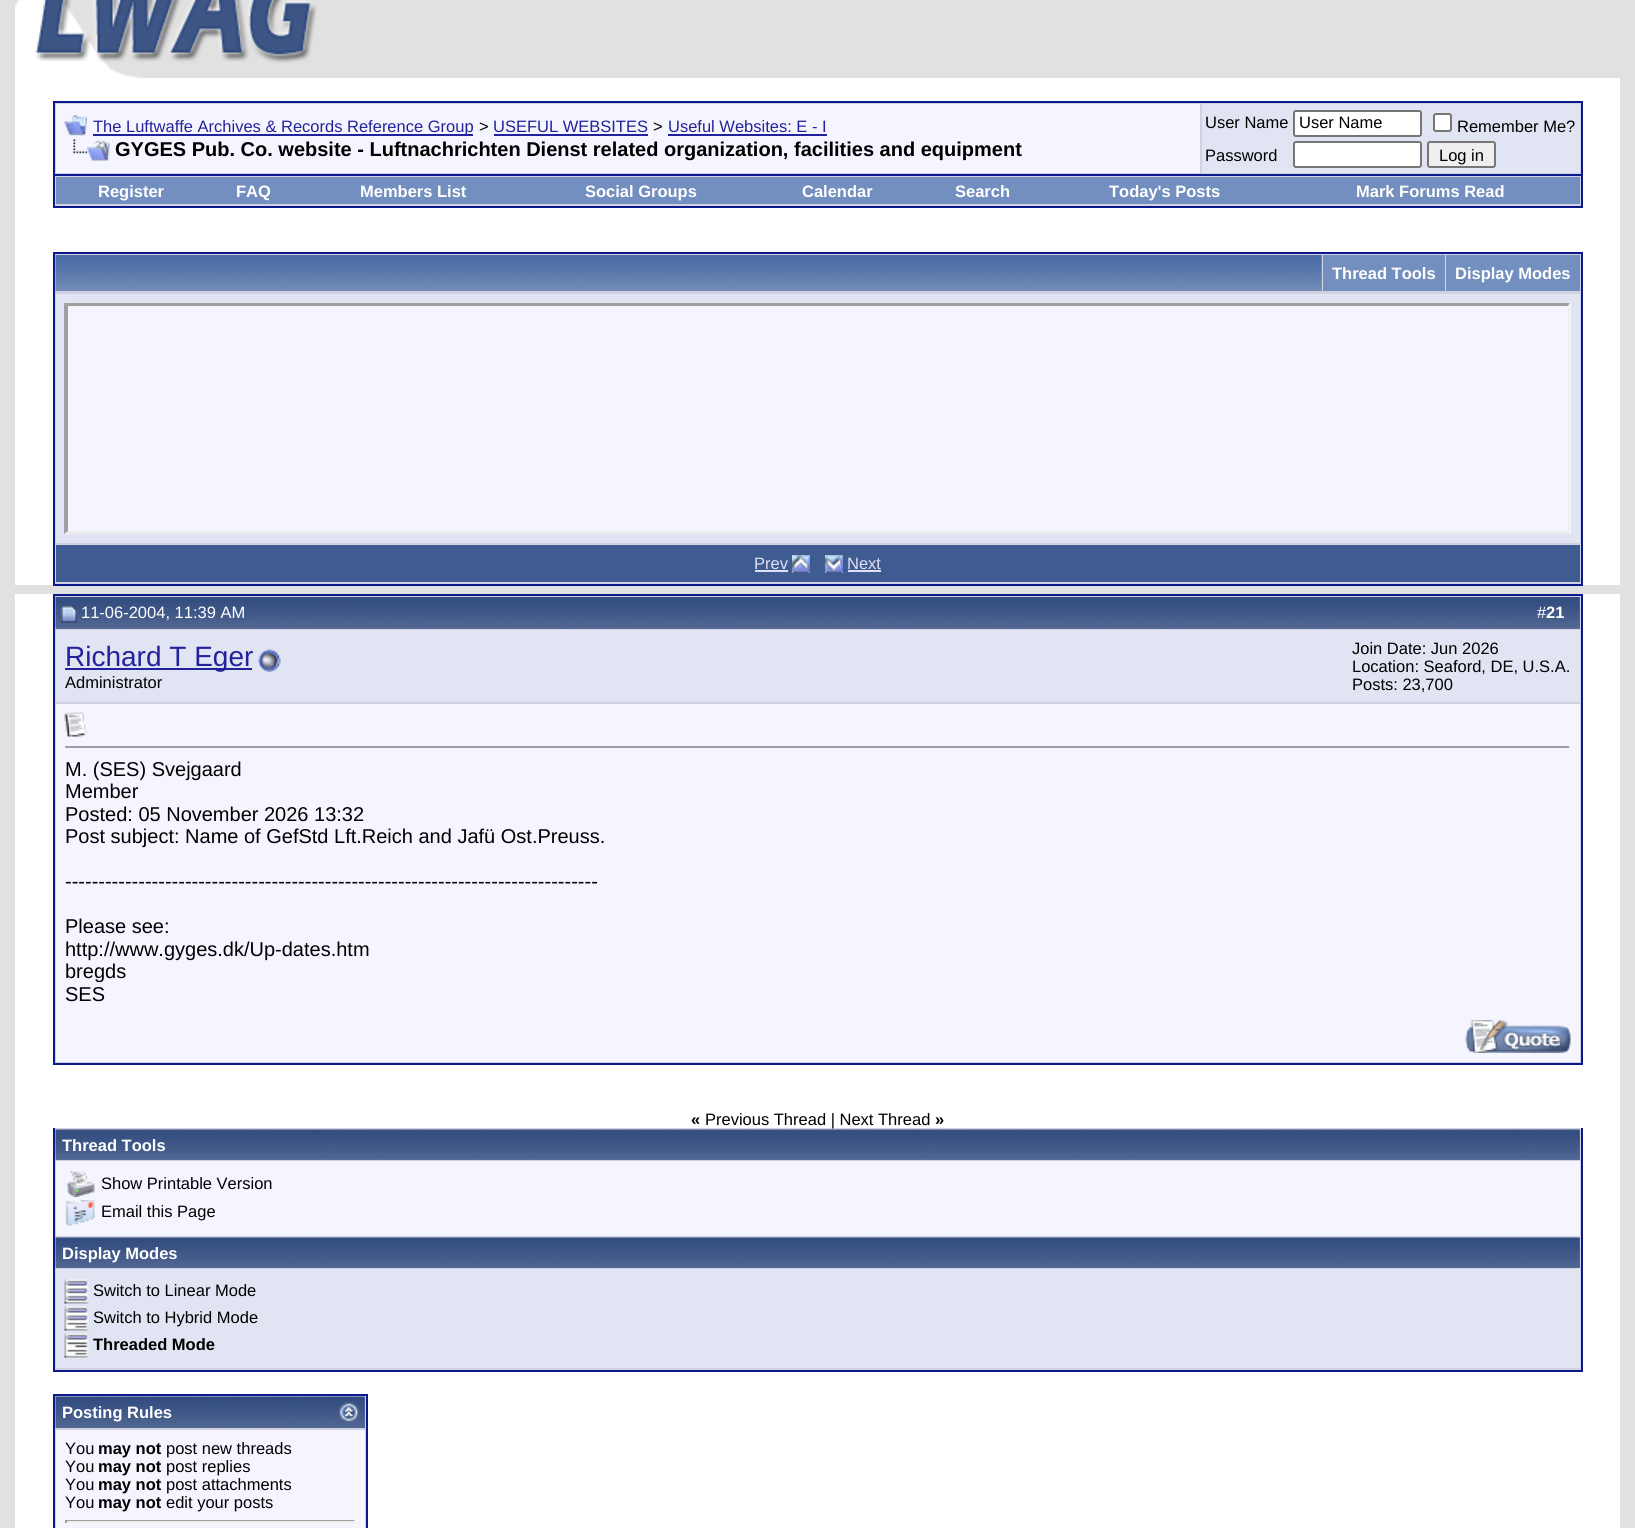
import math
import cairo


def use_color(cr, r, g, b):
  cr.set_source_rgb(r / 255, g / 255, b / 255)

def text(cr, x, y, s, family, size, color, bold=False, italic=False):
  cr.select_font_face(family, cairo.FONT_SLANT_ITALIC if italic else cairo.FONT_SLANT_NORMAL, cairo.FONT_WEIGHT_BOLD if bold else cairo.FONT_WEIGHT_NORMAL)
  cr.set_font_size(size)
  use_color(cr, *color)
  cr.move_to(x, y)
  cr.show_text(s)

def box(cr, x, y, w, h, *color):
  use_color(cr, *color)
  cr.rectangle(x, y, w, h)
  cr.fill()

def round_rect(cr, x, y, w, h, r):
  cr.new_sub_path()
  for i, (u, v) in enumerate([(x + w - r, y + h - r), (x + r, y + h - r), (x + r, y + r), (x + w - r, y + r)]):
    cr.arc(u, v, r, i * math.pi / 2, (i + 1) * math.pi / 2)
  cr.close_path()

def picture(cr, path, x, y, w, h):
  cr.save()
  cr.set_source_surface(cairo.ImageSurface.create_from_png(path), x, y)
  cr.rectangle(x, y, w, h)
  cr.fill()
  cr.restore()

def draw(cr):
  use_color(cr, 225, 225, 226)
  cr.paint()
  picture(cr, "img_01.png", 15, 0, 302, 78)
  box(cr, 15, 78, 1605, 507, 255, 255, 255)
  use_color(cr, 209, 209, 225)
  cr.rectangle(54, 102, 1528, 73)
  cr.fill_preserve()
  use_color(cr, 11, 25, 140)
  cr.stroke()
  box(cr, 56, 104, 1144, 69, 245, 245, 255)
  picture(cr, "img_02.png", 64, 115, 23, 21)
  box(cr, 93, 134, 380, 2, 34, 34, 156)
  box(cr, 494, 134, 154, 2, 34, 34, 156)
  box(cr, 668, 134, 159, 2, 34, 34, 156)
  picture(cr, "img_03.png", 73, 139, 37, 22)
  box(cr, 1202, 104, 378, 69, 225, 228, 242)
  use_color(cr, 255, 255, 255)
  round_rect(cr, 1294, 111, 127, 25, 2)
  cr.fill_preserve()
  use_color(cr, 118, 118, 118)
  cr.stroke()
  use_color(cr, 255, 255, 255)
  round_rect(cr, 1434, 114, 17, 17, 2)
  cr.fill_preserve()
  use_color(cr, 118, 118, 118)
  cr.stroke()
  use_color(cr, 255, 255, 255)
  round_rect(cr, 1294, 142, 127, 25, 2)
  cr.fill_preserve()
  use_color(cr, 118, 118, 118)
  cr.stroke()
  use_color(cr, 239, 239, 239)
  round_rect(cr, 1428, 142, 67, 25, 2)
  cr.fill_preserve()
  use_color(cr, 118, 118, 118)
  cr.stroke()
  box(cr, 55, 176, 1526, 30, 209, 209, 225)
  box(cr, 1581, 176, 2, 31, 11, 25, 140)
  box(cr, 53, 206, 1530, 2, 11, 25, 140)
  box(cr, 53, 176, 2, 31, 11, 25, 140)
  box(cr, 56, 177, 1524, 27, 115, 143, 191)
  box(cr, 55, 254, 1526, 330, 209, 209, 225)
  box(cr, 53, 252, 1530, 2, 11, 25, 140)
  box(cr, 1581, 252, 2, 333, 11, 25, 140)
  box(cr, 53, 252, 2, 41, 11, 25, 140)
  box(cr, 1321, 255, 1, 36, 134, 155, 191)
  picture(cr, "img_04.png", 55, 255, 1267, 36)
  box(cr, 1323, 255, 122, 36, 115, 143, 191)
  box(cr, 1446, 255, 134, 36, 115, 143, 191)
  box(cr, 53, 584, 1530, 2, 11, 25, 140)
  box(cr, 53, 293, 2, 292, 11, 25, 140)
  box(cr, 56, 294, 1524, 249, 225, 228, 242)
  box(cr, 65, 303, 1506, 231, 245, 245, 255)
  use_color(cr, 159, 159, 159)
  cr.new_path()
  cr.move_to(64, 303)
  cr.line_to(1570, 303)
  cr.line_to(1568, 306)
  cr.line_to(68, 306)
  cr.close_path()
  cr.fill()
  use_color(cr, 238, 238, 238)
  cr.new_path()
  cr.move_to(1570, 303)
  cr.line_to(1570, 534)
  cr.line_to(1568, 531)
  cr.line_to(1568, 306)
  cr.close_path()
  cr.fill()
  cr.new_path()
  cr.move_to(1570, 534)
  cr.line_to(64, 534)
  cr.line_to(68, 531)
  cr.line_to(1568, 531)
  cr.close_path()
  cr.fill()
  use_color(cr, 159, 159, 159)
  cr.new_path()
  cr.move_to(64, 534)
  cr.line_to(64, 303)
  cr.line_to(68, 306)
  cr.line_to(68, 531)
  cr.close_path()
  cr.fill()
  box(cr, 56, 545, 1524, 37, 62, 92, 146)
  box(cr, 755, 570, 33, 2, 224, 224, 246)
  picture(cr, "img_05.png", 792, 555, 18, 18)
  picture(cr, "img_06.png", 825, 555, 18, 18)
  box(cr, 848, 570, 33, 2, 224, 224, 246)
  box(cr, 15, 594, 1605, 934, 255, 255, 255)
  use_color(cr, 209, 209, 225)
  cr.rectangle(54, 595, 1528, 469)
  cr.fill_preserve()
  use_color(cr, 11, 25, 140)
  cr.stroke()
  box(cr, 56, 597, 1524, 32, 92, 112, 153)
  picture(cr, "img_07.png", 55, 597, 1525, 32)
  picture(cr, "img_08.png", 61, 606, 16, 17)
  box(cr, 56, 630, 1524, 72, 225, 228, 242)
  box(cr, 65, 668, 187, 2, 34, 34, 156)
  picture(cr, "img_09.png", 258, 649, 23, 23)
  box(cr, 56, 704, 1524, 358, 245, 245, 255)
  picture(cr, "img_10.png", 64, 712, 24, 25)
  box(cr, 65, 746, 1506, 2, 159, 159, 159)
  box(cr, 1569, 746, 2, 2, 238, 238, 238)
  picture(cr, "img_11.png", 1465, 1020, 106, 33)
  box(cr, 55, 1128, 1526, 242, 209, 209, 225)
  box(cr, 1581, 1128, 2, 243, 11, 25, 140)
  box(cr, 53, 1370, 1530, 2, 11, 25, 140)
  box(cr, 53, 1128, 2, 243, 11, 25, 140)
  box(cr, 56, 1130, 1524, 30, 92, 112, 153)
  picture(cr, "img_12.png", 55, 1129, 1525, 31)
  box(cr, 56, 1161, 1524, 75, 245, 245, 255)
  picture(cr, "img_13.png", 67, 1171, 28, 26)
  picture(cr, "img_14.png", 65, 1200, 30, 26)
  box(cr, 56, 1238, 1524, 30, 92, 112, 153)
  picture(cr, "img_15.png", 55, 1237, 1525, 31)
  box(cr, 56, 1269, 1524, 99, 225, 228, 242)
  picture(cr, "img_16.png", 64, 1279, 25, 25)
  picture(cr, "img_17.png", 64, 1306, 25, 25)
  picture(cr, "img_18.png", 64, 1333, 25, 25)
  use_color(cr, 209, 209, 225)
  cr.rectangle(54, 1395, 313, 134)
  cr.fill_preserve()
  use_color(cr, 11, 25, 140)
  cr.stroke()
  box(cr, 364, 1397, 1, 31, 92, 112, 153)
  picture(cr, "img_19.png", 55, 1396, 310, 32)
  picture(cr, "img_20.png", 339, 1402, 20, 20)
  box(cr, 56, 1430, 309, 98, 245, 245, 255)
  box(cr, 65, 1520, 291, 1, 159, 159, 159)
  box(cr, 354, 1520, 2, 3, 238, 238, 238)
  box(cr, 65, 1521, 291, 2, 238, 238, 238)
  box(cr, 65, 1520, 2, 3, 159, 159, 159)
  text(cr, 93, 132, "The Luftwaffe Archives & Records Reference Group", "Liberation Sans", 16.5, (34, 34, 156))
  text(cr, 479, 132, ">", "Liberation Sans", 16.5, (0, 0, 0))
  text(cr, 493, 132, "USEFUL WEBSITES", "Liberation Sans", 16.5, (34, 34, 156))
  text(cr, 653, 132, ">", "Liberation Sans", 16.5, (0, 0, 0))
  text(cr, 668, 132, "Useful Websites: E - I", "Liberation Sans", 16.5, (34, 34, 156))
  text(cr, 115, 156, "GYGES Pub. Co. website - Luftnachrichten Dienst related organization, facilities and equipment", "Liberation Sans", 20, (0, 0, 0), bold=True)
  text(cr, 1205, 128, "User Name", "Liberation Sans", 16.5, (0, 0, 0))
  text(cr, 1299, 128, "User Name", "Liberation Sans", 16.5, (0, 0, 0))
  text(cr, 1457, 132, "Remember Me?", "Liberation Sans", 16.5, (0, 0, 0))
  text(cr, 1205, 161, "Password", "Liberation Sans", 16.5, (0, 0, 0))
  text(cr, 1439, 161, "Log in", "Liberation Sans", 16.5, (0, 0, 0))
  text(cr, 98, 197, "Register", "Liberation Sans", 16.5, (255, 255, 255), bold=True)
  text(cr, 236, 197, "FAQ", "Liberation Sans", 16.5, (255, 255, 255), bold=True)
  text(cr, 360, 197, "Members List", "Liberation Sans", 16.5, (255, 255, 255), bold=True)
  text(cr, 585, 197, "Social Groups", "Liberation Sans", 16.5, (255, 255, 255), bold=True)
  text(cr, 802, 197, "Calendar", "Liberation Sans", 16.5, (255, 255, 255), bold=True)
  text(cr, 955, 197, "Search", "Liberation Sans", 16.5, (255, 255, 255), bold=True)
  text(cr, 1109, 197, "Today's Posts", "Liberation Sans", 16.5, (255, 255, 255), bold=True)
  text(cr, 1356, 197, "Mark Forums Read", "Liberation Sans", 16.5, (255, 255, 255), bold=True)
  text(cr, 1332, 279, "Thread Tools", "Liberation Sans", 16.5, (255, 255, 255), bold=True)
  text(cr, 1455, 279, "Display Modes", "Liberation Sans", 16.5, (255, 255, 255), bold=True)
  text(cr, 754, 569, "Prev", "Liberation Sans", 16.5, (224, 224, 246))
  text(cr, 847, 569, "Next", "Liberation Sans", 16.5, (224, 224, 246))
  text(cr, 81, 618, "11-06-2004, 11:39 AM", "Liberation Sans", 16.5, (255, 255, 255))
  text(cr, 1537, 618, "#", "Liberation Sans", 16.5, (255, 255, 255))
  text(cr, 1546, 618, "21", "Liberation Sans", 16.5, (255, 255, 255), bold=True)
  text(cr, 65, 666, "Richard T Eger", "Liberation Sans", 28, (34, 34, 156))
  text(cr, 65, 688, "Administrator", "Liberation Sans", 16.5, (0, 0, 0))
  text(cr, 1352, 654, "Join Date: Jun 2026", "Liberation Sans", 16.5, (0, 0, 0))
  text(cr, 1352, 672, "Location: Seaford, DE, U.S.A.", "Liberation Sans", 16.5, (0, 0, 0))
  text(cr, 1352, 690, "Posts: 23,700", "Liberation Sans", 16.5, (0, 0, 0))
  text(cr, 65, 776, "M. (SES) Svejgaard", "Liberation Sans", 20, (0, 0, 0))
  text(cr, 65, 798, "Member", "Liberation Sans", 20, (0, 0, 0))
  text(cr, 65, 821, "Posted: 05 November 2026 13:32", "Liberation Sans", 20, (0, 0, 0))
  text(cr, 65, 843, "Post subject: Name of GefStd Lft.Reich and Jafü Ost.Preuss.", "Liberation Sans", 20, (0, 0, 0))
  text(cr, 65, 888, "--------------------------------------------------------------------------------", "Liberation Sans", 20, (0, 0, 0))
  text(cr, 65, 933, "Please see:", "Liberation Sans", 20, (0, 0, 0))
  text(cr, 65, 956, "http://www.gyges.dk/Up-dates.htm", "Liberation Sans", 20, (0, 0, 0))
  text(cr, 65, 978, "bregds", "Liberation Sans", 20, (0, 0, 0))
  text(cr, 65, 1001, "SES", "Liberation Sans", 20, (0, 0, 0))
  text(cr, 691, 1125, "«", "Liberation Sans", 16.5, (0, 0, 0), bold=True)
  text(cr, 705, 1125, "Previous Thread | Next Thread", "Liberation Sans", 16.5, (0, 0, 0))
  text(cr, 935, 1125, "»", "Liberation Sans", 16.5, (0, 0, 0), bold=True)
  text(cr, 62, 1151, "Thread Tools", "Liberation Sans", 16.5, (255, 255, 255), bold=True)
  text(cr, 101, 1189, "Show Printable Version", "Liberation Sans", 16.5, (0, 0, 0))
  text(cr, 101, 1217, "Email this Page", "Liberation Sans", 16.5, (0, 0, 0))
  text(cr, 62, 1259, "Display Modes", "Liberation Sans", 16.5, (255, 255, 255), bold=True)
  text(cr, 93, 1296, "Switch to Linear Mode", "Liberation Sans", 16.5, (0, 0, 0))
  text(cr, 93, 1323, "Switch to Hybrid Mode", "Liberation Sans", 16.5, (0, 0, 0))
  text(cr, 93, 1350, "Threaded Mode", "Liberation Sans", 16.5, (0, 0, 0), bold=True)
  text(cr, 62, 1418, "Posting Rules", "Liberation Sans", 16.5, (255, 255, 255), bold=True)
  text(cr, 65, 1454, "You", "Liberation Sans", 16.5, (0, 0, 0))
  text(cr, 98, 1454, "may not", "Liberation Sans", 16.5, (0, 0, 0), bold=True)
  text(cr, 166, 1454, "post new threads", "Liberation Sans", 16.5, (0, 0, 0))
  text(cr, 65, 1472, "You", "Liberation Sans", 16.5, (0, 0, 0))
  text(cr, 98, 1472, "may not", "Liberation Sans", 16.5, (0, 0, 0), bold=True)
  text(cr, 166, 1472, "post replies", "Liberation Sans", 16.5, (0, 0, 0))
  text(cr, 65, 1490, "You", "Liberation Sans", 16.5, (0, 0, 0))
  text(cr, 98, 1490, "may not", "Liberation Sans", 16.5, (0, 0, 0), bold=True)
  text(cr, 166, 1490, "post attachments", "Liberation Sans", 16.5, (0, 0, 0))
  text(cr, 65, 1508, "You", "Liberation Sans", 16.5, (0, 0, 0))
  text(cr, 98, 1508, "may not", "Liberation Sans", 16.5, (0, 0, 0), bold=True)
  text(cr, 166, 1508, "edit your posts", "Liberation Sans", 16.5, (0, 0, 0))


surface = cairo.ImageSurface(cairo.FORMAT_RGB24, 1635, 1528)
cr = cairo.Context(surface)
options = cairo.FontOptions()
options.set_hint_metrics(cairo.HINT_METRICS_OFF)
options.set_hint_style(cairo.HINT_STYLE_NONE)
cr.set_font_options(options)
cr.set_miter_limit(4)
draw(cr)
surface.write_to_png("out.png")
